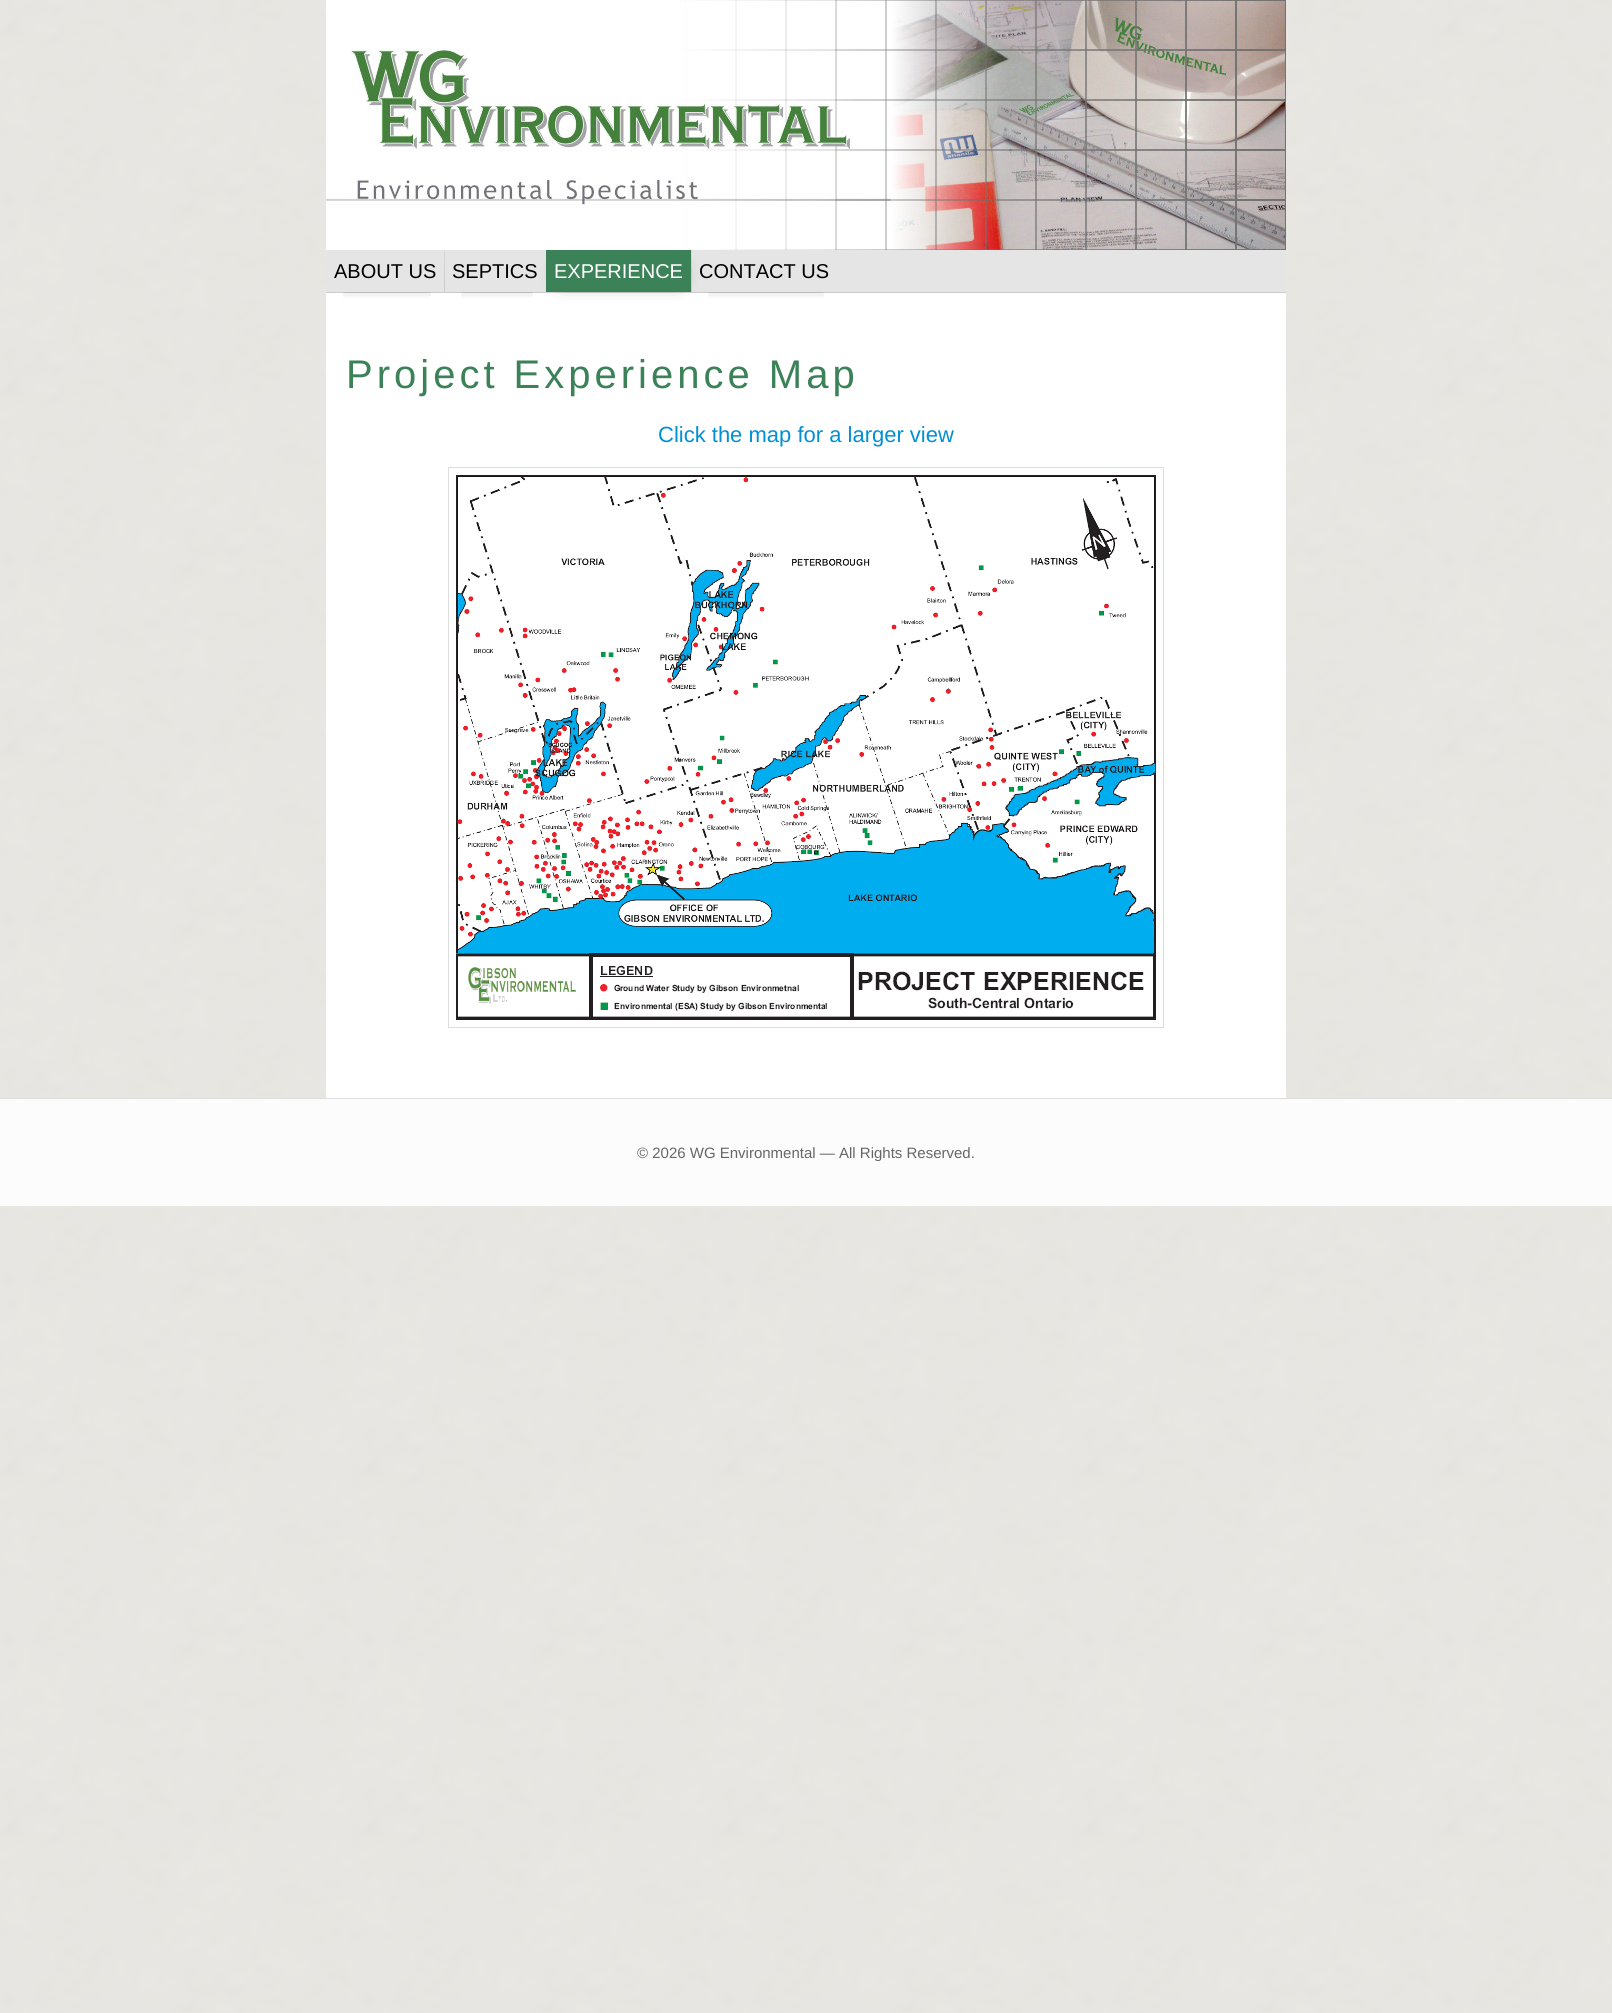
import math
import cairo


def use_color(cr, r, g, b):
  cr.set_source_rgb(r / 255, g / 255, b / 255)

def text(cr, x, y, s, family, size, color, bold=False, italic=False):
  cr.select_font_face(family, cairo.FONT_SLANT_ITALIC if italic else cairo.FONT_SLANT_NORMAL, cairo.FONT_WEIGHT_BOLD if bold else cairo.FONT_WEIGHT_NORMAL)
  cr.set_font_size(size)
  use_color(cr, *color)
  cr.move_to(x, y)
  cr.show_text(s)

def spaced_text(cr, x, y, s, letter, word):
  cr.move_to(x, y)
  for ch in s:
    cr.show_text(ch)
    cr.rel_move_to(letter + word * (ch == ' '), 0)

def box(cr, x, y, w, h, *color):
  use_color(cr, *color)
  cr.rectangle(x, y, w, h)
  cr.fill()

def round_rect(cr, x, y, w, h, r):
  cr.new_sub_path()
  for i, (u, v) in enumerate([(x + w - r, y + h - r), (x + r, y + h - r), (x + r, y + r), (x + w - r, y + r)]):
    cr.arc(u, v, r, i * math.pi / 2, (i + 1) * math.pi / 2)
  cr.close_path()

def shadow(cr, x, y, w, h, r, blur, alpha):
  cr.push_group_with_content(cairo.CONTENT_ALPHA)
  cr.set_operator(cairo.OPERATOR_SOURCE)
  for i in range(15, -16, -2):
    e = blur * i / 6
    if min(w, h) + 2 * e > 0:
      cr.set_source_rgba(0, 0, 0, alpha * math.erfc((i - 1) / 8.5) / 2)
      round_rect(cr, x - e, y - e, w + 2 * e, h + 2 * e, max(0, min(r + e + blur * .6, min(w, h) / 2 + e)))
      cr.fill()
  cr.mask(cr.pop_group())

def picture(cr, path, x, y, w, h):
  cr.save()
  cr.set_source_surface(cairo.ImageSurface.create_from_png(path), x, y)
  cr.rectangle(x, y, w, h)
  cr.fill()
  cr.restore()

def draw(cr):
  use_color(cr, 255, 255, 255)
  cr.paint()
  picture(cr, "img_01.png", 0, 0, 1612, 2013)
  picture(cr, "img_02.png", 326, 0, 960, 250)
  box(cr, 326, 250, 960, 42, 229, 229, 229)
  box(cr, 326, 292, 960, 1, 204, 204, 204)
  box(cr, 326, 293, 960, 805, 255, 255, 255)
  cr.save()
  cr.rectangle(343, 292, 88, 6)
  cr.clip()
  use_color(cr, 0, 0, 0)
  shadow(cr, 346, 272, 82, 6, 0, 10, 1)
  cr.restore()
  cr.save()
  cr.rectangle(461, 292, 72, 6)
  cr.clip()
  use_color(cr, 0, 0, 0)
  shadow(cr, 464, 272, 66, 6, 0, 10, 1)
  cr.restore()
  picture(cr, "img_03.png", 444, 250, 1, 42)
  use_color(cr, 0, 0, 0)
  shadow(cr, 566, 272, 109, 6, 0, 10, 1)
  box(cr, 546, 250, 145, 42, 59, 130, 89)
  cr.save()
  cr.rectangle(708, 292, 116, 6)
  cr.clip()
  use_color(cr, 0, 0, 0)
  shadow(cr, 711, 272, 110, 6, 0, 10, 1)
  cr.restore()
  picture(cr, "img_03.png", 691, 250, 1, 42)
  cr.rectangle(448.5, 467.5, 715, 560)
  use_color(cr, 221, 221, 221)
  cr.set_line_width(1)
  cr.stroke()
  picture(cr, "img_04.png", 456, 475, 700, 545)
  box(cr, 0, 1099, 1612, 107, 252, 252, 252)
  box(cr, 0, 1098, 1612, 1, 221, 221, 221)
  text(cr, 334, 278, "ABOUT US", "Liberation Sans", 20, (0, 0, 0))
  text(cr, 452, 278, "SEPTICS", "Liberation Sans", 20, (0, 0, 0))
  text(cr, 554, 278, "EXPERIENCE", "Liberation Sans", 20, (255, 255, 255))
  text(cr, 699, 278, "CONTACT US", "Liberation Sans", 20, (0, 0, 0))
  cr.set_font_size(40)
  use_color(cr, 59, 130, 89)
  spaced_text(cr, 346, 388, "Project Experience Map", 4, 0)
  text(cr, 658, 442, "Click the map for a larger view", "Liberation Sans", 22, (0, 144, 211))
  text(cr, 637, 1158, "© 2026 WG Environmental — All Rights Reserved.", "Liberation Sans", 15, (102, 102, 102))


surface = cairo.ImageSurface(cairo.FORMAT_RGB24, 1612, 2013)
cr = cairo.Context(surface)
options = cairo.FontOptions()
options.set_hint_metrics(cairo.HINT_METRICS_OFF)
options.set_hint_style(cairo.HINT_STYLE_NONE)
cr.set_font_options(options)
cr.set_miter_limit(4)
draw(cr)
surface.write_to_png("out.png")
